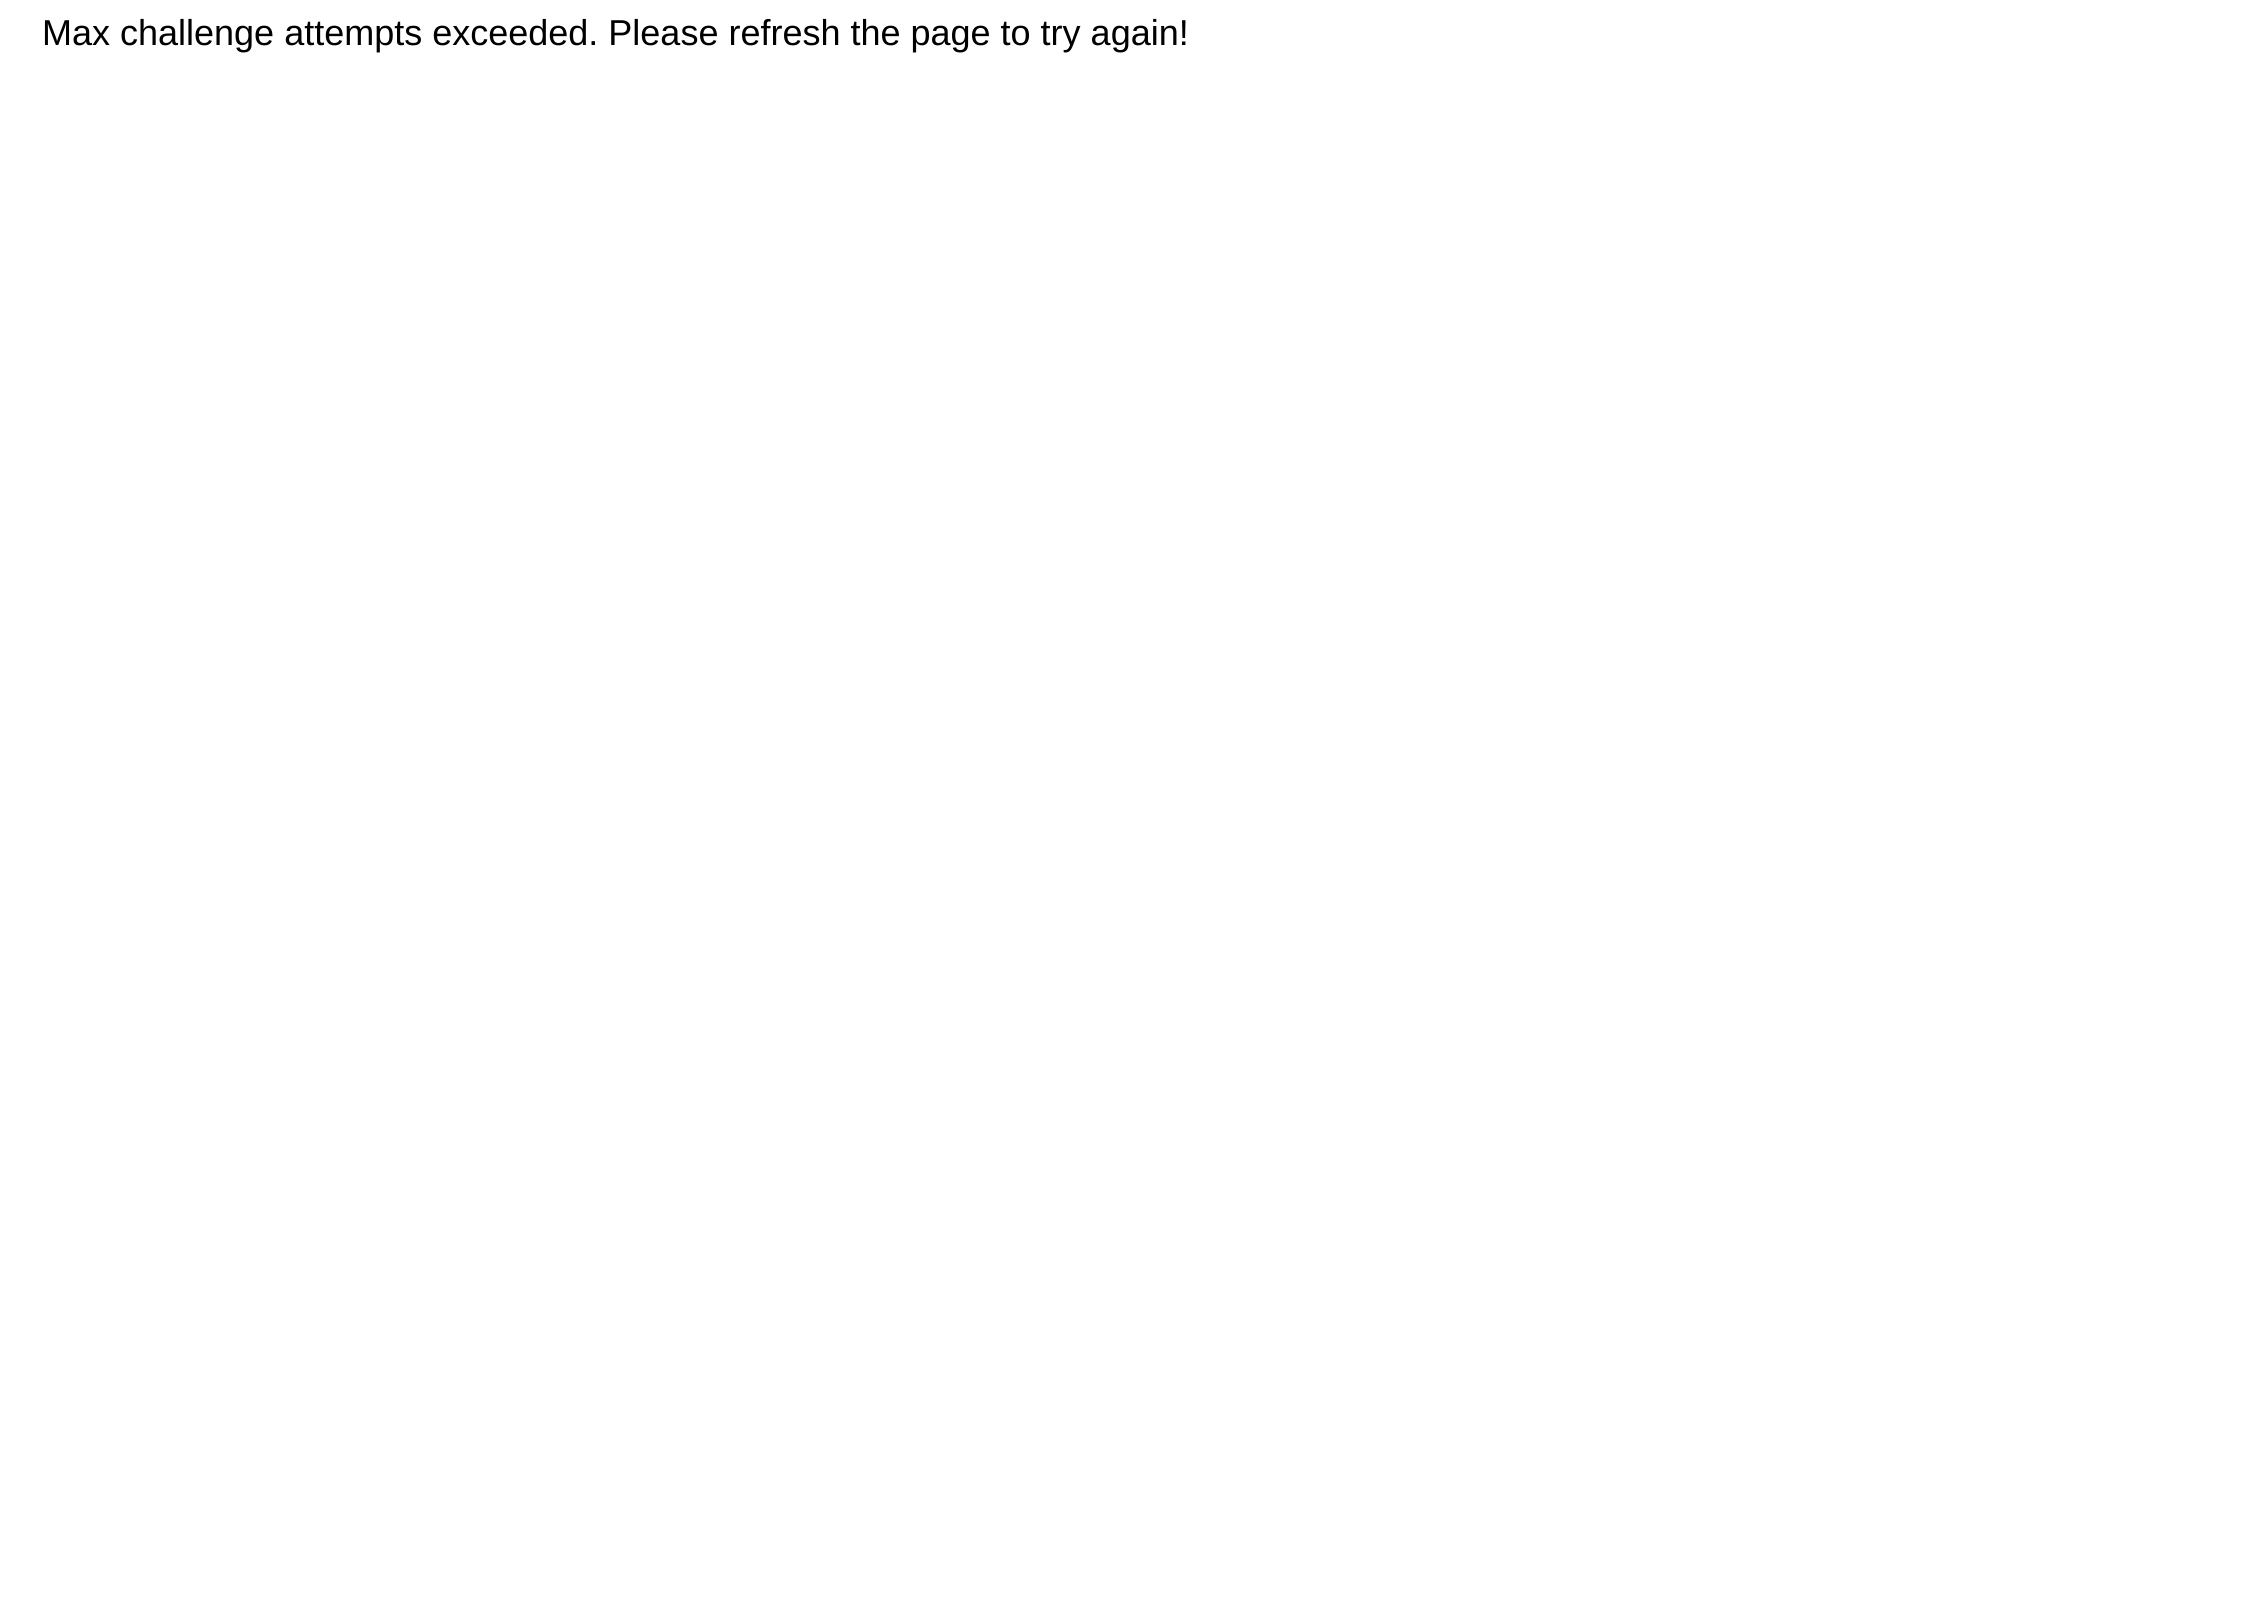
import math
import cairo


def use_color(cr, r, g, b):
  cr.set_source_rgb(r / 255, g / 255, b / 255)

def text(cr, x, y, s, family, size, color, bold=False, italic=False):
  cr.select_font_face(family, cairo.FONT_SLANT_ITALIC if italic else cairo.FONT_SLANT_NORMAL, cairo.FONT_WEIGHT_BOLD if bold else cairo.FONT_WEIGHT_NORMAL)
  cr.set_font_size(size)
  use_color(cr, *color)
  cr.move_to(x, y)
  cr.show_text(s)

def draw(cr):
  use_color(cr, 255, 255, 255)
  cr.paint()
  text(cr, 42, 45, "Max challenge attempts exceeded. Please refresh the page to try again!", "Liberation Sans", 36, (0, 0, 0))


surface = cairo.ImageSurface(cairo.FORMAT_RGB24, 2249, 1617)
cr = cairo.Context(surface)
options = cairo.FontOptions()
options.set_hint_metrics(cairo.HINT_METRICS_OFF)
options.set_hint_style(cairo.HINT_STYLE_NONE)
cr.set_font_options(options)
cr.set_miter_limit(4)
draw(cr)
surface.write_to_png("out.png")
